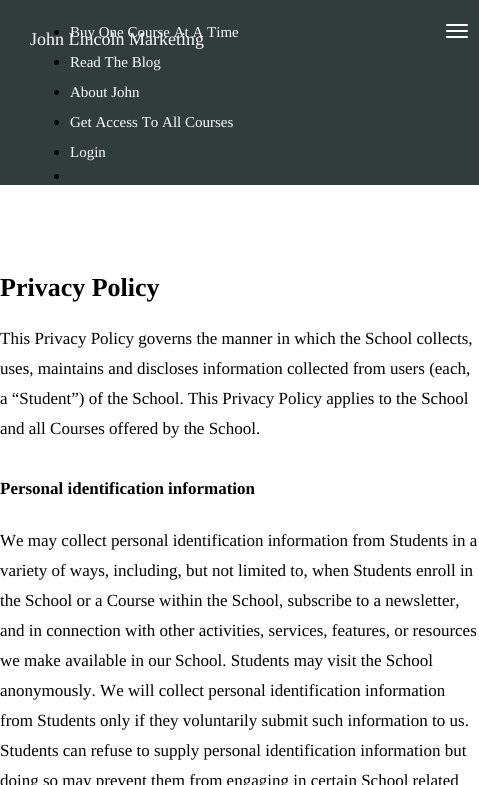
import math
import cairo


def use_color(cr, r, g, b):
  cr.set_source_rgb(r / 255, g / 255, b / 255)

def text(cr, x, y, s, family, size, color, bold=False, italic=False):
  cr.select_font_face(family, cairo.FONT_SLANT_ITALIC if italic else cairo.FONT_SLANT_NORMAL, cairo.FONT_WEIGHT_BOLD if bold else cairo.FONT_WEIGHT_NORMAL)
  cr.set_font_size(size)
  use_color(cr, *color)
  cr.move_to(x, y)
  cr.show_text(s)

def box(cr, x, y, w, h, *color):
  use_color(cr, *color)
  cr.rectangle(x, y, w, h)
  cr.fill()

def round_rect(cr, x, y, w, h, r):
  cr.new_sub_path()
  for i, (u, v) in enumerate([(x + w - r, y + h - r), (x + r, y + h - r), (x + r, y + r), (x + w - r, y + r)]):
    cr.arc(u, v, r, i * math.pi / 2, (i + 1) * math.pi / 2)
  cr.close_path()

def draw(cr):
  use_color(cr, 255, 255, 255)
  cr.paint()
  box(cr, 0, 0, 479, 185, 49, 60, 60)
  use_color(cr, 0, 0, 0)
  cr.arc(56.5, 32.5, 2.5, 0, 2 * math.pi)
  cr.fill()
  cr.arc(56.5, 62.5, 2.5, 0, 2 * math.pi)
  cr.fill()
  cr.arc(56.5, 92.5, 2.5, 0, 2 * math.pi)
  cr.fill()
  cr.arc(56.5, 122.5, 2.5, 0, 2 * math.pi)
  cr.fill()
  cr.arc(56.5, 152.5, 2.5, 0, 2 * math.pi)
  cr.fill()
  cr.arc(56.5, 176.5, 2.5, 0, 2 * math.pi)
  cr.fill()
  use_color(cr, 255, 255, 255)
  round_rect(cr, 446, 24, 22, 2, 1)
  cr.fill()
  round_rect(cr, 446, 30, 22, 2, 1)
  cr.fill()
  round_rect(cr, 446, 36, 22, 2, 1)
  cr.fill()
  text(cr, 70, 37, "Buy One Course At A Time", "Liberation Serif", 15, (255, 255, 255))
  text(cr, 70, 67, "Read The Blog", "Liberation Serif", 15, (255, 255, 255))
  text(cr, 70, 97, "About John", "Liberation Serif", 15, (255, 255, 255))
  text(cr, 70, 127, "Get Access To All Courses", "Liberation Serif", 15, (255, 255, 255))
  text(cr, 70, 157, "Login", "Liberation Serif", 15, (255, 255, 255))
  text(cr, 30, 45, "John Lincoln Marketing", "Liberation Serif", 18, (255, 255, 255))
  text(cr, 0, 296, "Privacy Policy", "Liberation Serif", 26, (0, 0, 0), bold=True)
  text(cr, 0, 344, "This Privacy Policy governs the manner in which the School collects,", "Liberation Serif", 17, (0, 0, 0))
  text(cr, 0, 374, "uses, maintains and discloses information collected from users (each,", "Liberation Serif", 17, (0, 0, 0))
  text(cr, 0, 404, "a “Student”) of the School. This Privacy Policy applies to the School", "Liberation Serif", 17, (0, 0, 0))
  text(cr, 0, 434, "and all Courses offered by the School.", "Liberation Serif", 17, (0, 0, 0))
  text(cr, 0, 494, "Personal identification information", "Liberation Serif", 17, (0, 0, 0), bold=True)
  text(cr, 0, 546, "We may collect personal identification information from Students in a", "Liberation Serif", 17, (0, 0, 0))
  text(cr, 0, 576, "variety of ways, including, but not limited to, when Students enroll in", "Liberation Serif", 17, (0, 0, 0))
  text(cr, 0, 606, "the School or a Course within the School, subscribe to a newsletter,", "Liberation Serif", 17, (0, 0, 0))
  text(cr, 0, 636, "and in connection with other activities, services, features, or resources", "Liberation Serif", 17, (0, 0, 0))
  text(cr, 0, 666, "we make available in our School. Students may visit the School", "Liberation Serif", 17, (0, 0, 0))
  text(cr, 0, 696, "anonymously. We will collect personal identification information", "Liberation Serif", 17, (0, 0, 0))
  text(cr, 0, 726, "from Students only if they voluntarily submit such information to us.", "Liberation Serif", 17, (0, 0, 0))
  text(cr, 0, 756, "Students can refuse to supply personal identification information but", "Liberation Serif", 17, (0, 0, 0))
  text(cr, 0, 786, "doing so may prevent them from engaging in certain School related", "Liberation Serif", 17, (0, 0, 0))


surface = cairo.ImageSurface(cairo.FORMAT_RGB24, 479, 785)
cr = cairo.Context(surface)
options = cairo.FontOptions()
options.set_hint_metrics(cairo.HINT_METRICS_OFF)
options.set_hint_style(cairo.HINT_STYLE_NONE)
cr.set_font_options(options)
cr.set_miter_limit(4)
draw(cr)
surface.write_to_png("out.png")
